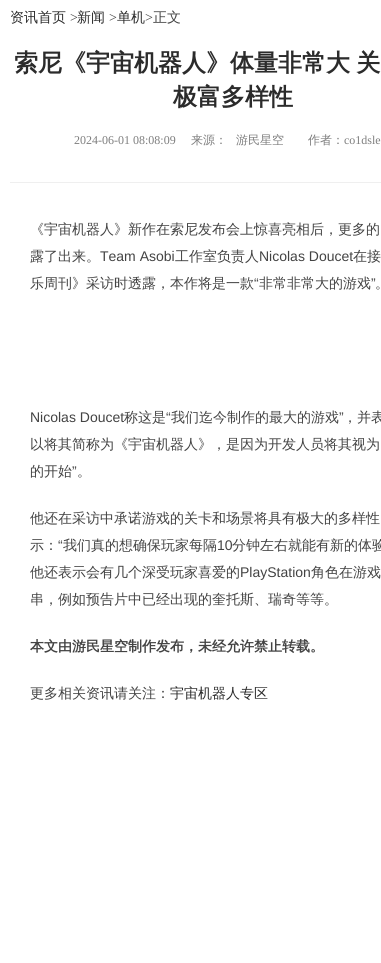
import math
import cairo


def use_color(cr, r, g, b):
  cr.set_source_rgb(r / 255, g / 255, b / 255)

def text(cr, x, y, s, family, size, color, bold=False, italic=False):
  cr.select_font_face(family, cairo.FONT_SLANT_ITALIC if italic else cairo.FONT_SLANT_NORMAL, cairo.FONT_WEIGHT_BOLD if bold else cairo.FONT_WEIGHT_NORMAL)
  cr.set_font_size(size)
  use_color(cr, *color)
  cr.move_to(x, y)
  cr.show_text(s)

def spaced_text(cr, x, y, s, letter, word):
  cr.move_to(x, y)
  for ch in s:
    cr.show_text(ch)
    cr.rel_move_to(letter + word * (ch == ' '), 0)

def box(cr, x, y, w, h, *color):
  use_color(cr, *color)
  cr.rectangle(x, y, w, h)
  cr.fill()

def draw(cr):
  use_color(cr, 255, 255, 255)
  cr.paint()
  box(cr, 10, 182, 371, 1, 239, 239, 239)
  text(cr, 10, 22, "资讯首页", "WenQuanYi Zen Hei Medium", 14, (43, 43, 43))
  text(cr, 70, 22, ">", "Liberation Serif", 14, (67, 67, 67))
  text(cr, 77, 22, "新闻", "WenQuanYi Zen Hei Medium", 14, (43, 43, 43))
  text(cr, 109, 22, ">", "Liberation Serif", 14, (67, 67, 67))
  text(cr, 117, 22, "单机", "WenQuanYi Zen Hei Medium", 14, (43, 43, 43))
  text(cr, 145, 22, ">", "Liberation Serif", 14, (67, 67, 67))
  text(cr, 153, 22, "正文", "WenQuanYi Zen Hei Medium", 14, (67, 67, 67))
  cr.select_font_face("WenQuanYi Zen Hei", cairo.FONT_SLANT_NORMAL, cairo.FONT_WEIGHT_BOLD)
  cr.set_font_size(24)
  use_color(cr, 43, 43, 43)
  spaced_text(cr, 14, 71, "索尼《宇宙机器人》体量非常大 关", 0, -1)
  text(cr, 173, 105, "极富多样性", "WenQuanYi Zen Hei", 24, (43, 43, 43), bold=True)
  text(cr, 74, 144, "2024-06-01 08:08:09", "Liberation Serif", 12, (126, 126, 126))
  text(cr, 191, 144, "来源：", "WenQuanYi Zen Hei Medium", 12, (126, 126, 126))
  text(cr, 236, 144, "游民星空", "WenQuanYi Zen Hei Medium", 12, (126, 126, 126))
  text(cr, 308, 144, "作者：", "WenQuanYi Zen Hei Medium", 12, (126, 126, 126))
  text(cr, 344, 144, "co1dsle", "Liberation Serif", 12, (126, 126, 126))
  text(cr, 30, 234, "《宇宙机器人》新作在索尼发布会上惊喜亮相后，更多的", "WenQuanYi Zen Hei Medium", 14, (67, 67, 67))
  text(cr, 30, 261, "露了出来。", "WenQuanYi Zen Hei Medium", 14, (67, 67, 67))
  text(cr, 100, 261, "Team Asobi", "Liberation Sans", 14, (67, 67, 67))
  text(cr, 175, 261, "工作室负责人", "WenQuanYi Zen Hei Medium", 14, (67, 67, 67))
  text(cr, 259, 261, "Nicolas Doucet", "Liberation Sans", 14, (67, 67, 67))
  text(cr, 353, 261, "在接", "WenQuanYi Zen Hei Medium", 14, (67, 67, 67))
  text(cr, 30, 288, "乐周刊》采访时透露，本作将是一款", "WenQuanYi Zen Hei Medium", 14, (67, 67, 67))
  text(cr, 254, 288, "“", "Liberation Sans", 14, (67, 67, 67))
  text(cr, 259, 288, "非常非常大的游戏", "WenQuanYi Zen Hei Medium", 14, (67, 67, 67))
  text(cr, 371, 288, "”", "Liberation Sans", 14, (67, 67, 67))
  text(cr, 375, 288, "。", "WenQuanYi Zen Hei Medium", 14, (67, 67, 67))
  text(cr, 30, 422, "Nicolas Doucet", "Liberation Sans", 14, (67, 67, 67))
  text(cr, 124, 422, "称这是", "WenQuanYi Zen Hei Medium", 14, (67, 67, 67))
  text(cr, 166, 422, "“", "Liberation Sans", 14, (67, 67, 67))
  text(cr, 171, 422, "我们迄今制作的最大的游戏", "WenQuanYi Zen Hei Medium", 14, (67, 67, 67))
  text(cr, 339, 422, "”", "Liberation Sans", 14, (67, 67, 67))
  text(cr, 343, 422, "，并表", "WenQuanYi Zen Hei Medium", 14, (67, 67, 67))
  text(cr, 30, 449, "以将其简称为《宇宙机器人》，是因为开发人员将其视为", "WenQuanYi Zen Hei Medium", 14, (67, 67, 67))
  text(cr, 30, 476, "的开始", "WenQuanYi Zen Hei Medium", 14, (67, 67, 67))
  text(cr, 72, 476, "”", "Liberation Sans", 14, (67, 67, 67))
  text(cr, 77, 476, "。", "WenQuanYi Zen Hei Medium", 14, (67, 67, 67))
  text(cr, 30, 523, "他还在采访中承诺游戏的关卡和场景将具有极大的多样性", "WenQuanYi Zen Hei Medium", 14, (67, 67, 67))
  text(cr, 30, 550, "示：", "WenQuanYi Zen Hei Medium", 14, (67, 67, 67))
  text(cr, 58, 550, "“", "Liberation Sans", 14, (67, 67, 67))
  text(cr, 63, 550, "我们真的想确保玩家每隔", "WenQuanYi Zen Hei Medium", 14, (67, 67, 67))
  text(cr, 217, 550, "10", "Liberation Sans", 14, (67, 67, 67))
  text(cr, 232, 550, "分钟左右就能有新的体验", "WenQuanYi Zen Hei Medium", 14, (67, 67, 67))
  text(cr, 30, 577, "他还表示会有几个深受玩家喜爱的", "WenQuanYi Zen Hei Medium", 14, (67, 67, 67))
  text(cr, 240, 577, "PlayStation", "Liberation Sans", 14, (67, 67, 67))
  text(cr, 311, 577, "角色在游戏", "WenQuanYi Zen Hei Medium", 14, (67, 67, 67))
  text(cr, 30, 604, "串，例如预告片中已经出现的奎托斯、瑞奇等等。", "WenQuanYi Zen Hei Medium", 14, (67, 67, 67))
  text(cr, 30, 651, "本文由游民星空制作发布，未经允许禁止转载。", "WenQuanYi Zen Hei", 14, (67, 67, 67), bold=True)
  text(cr, 30, 698, "更多相关资讯请关注：", "WenQuanYi Zen Hei Medium", 14, (67, 67, 67))
  text(cr, 170, 698, "宇宙机器人专区", "WenQuanYi Zen Hei Medium", 14, (43, 43, 43))


surface = cairo.ImageSurface(cairo.FORMAT_RGB24, 381, 963)
cr = cairo.Context(surface)
options = cairo.FontOptions()
options.set_hint_metrics(cairo.HINT_METRICS_OFF)
options.set_hint_style(cairo.HINT_STYLE_NONE)
cr.set_font_options(options)
cr.set_miter_limit(4)
draw(cr)
surface.write_to_png("out.png")
